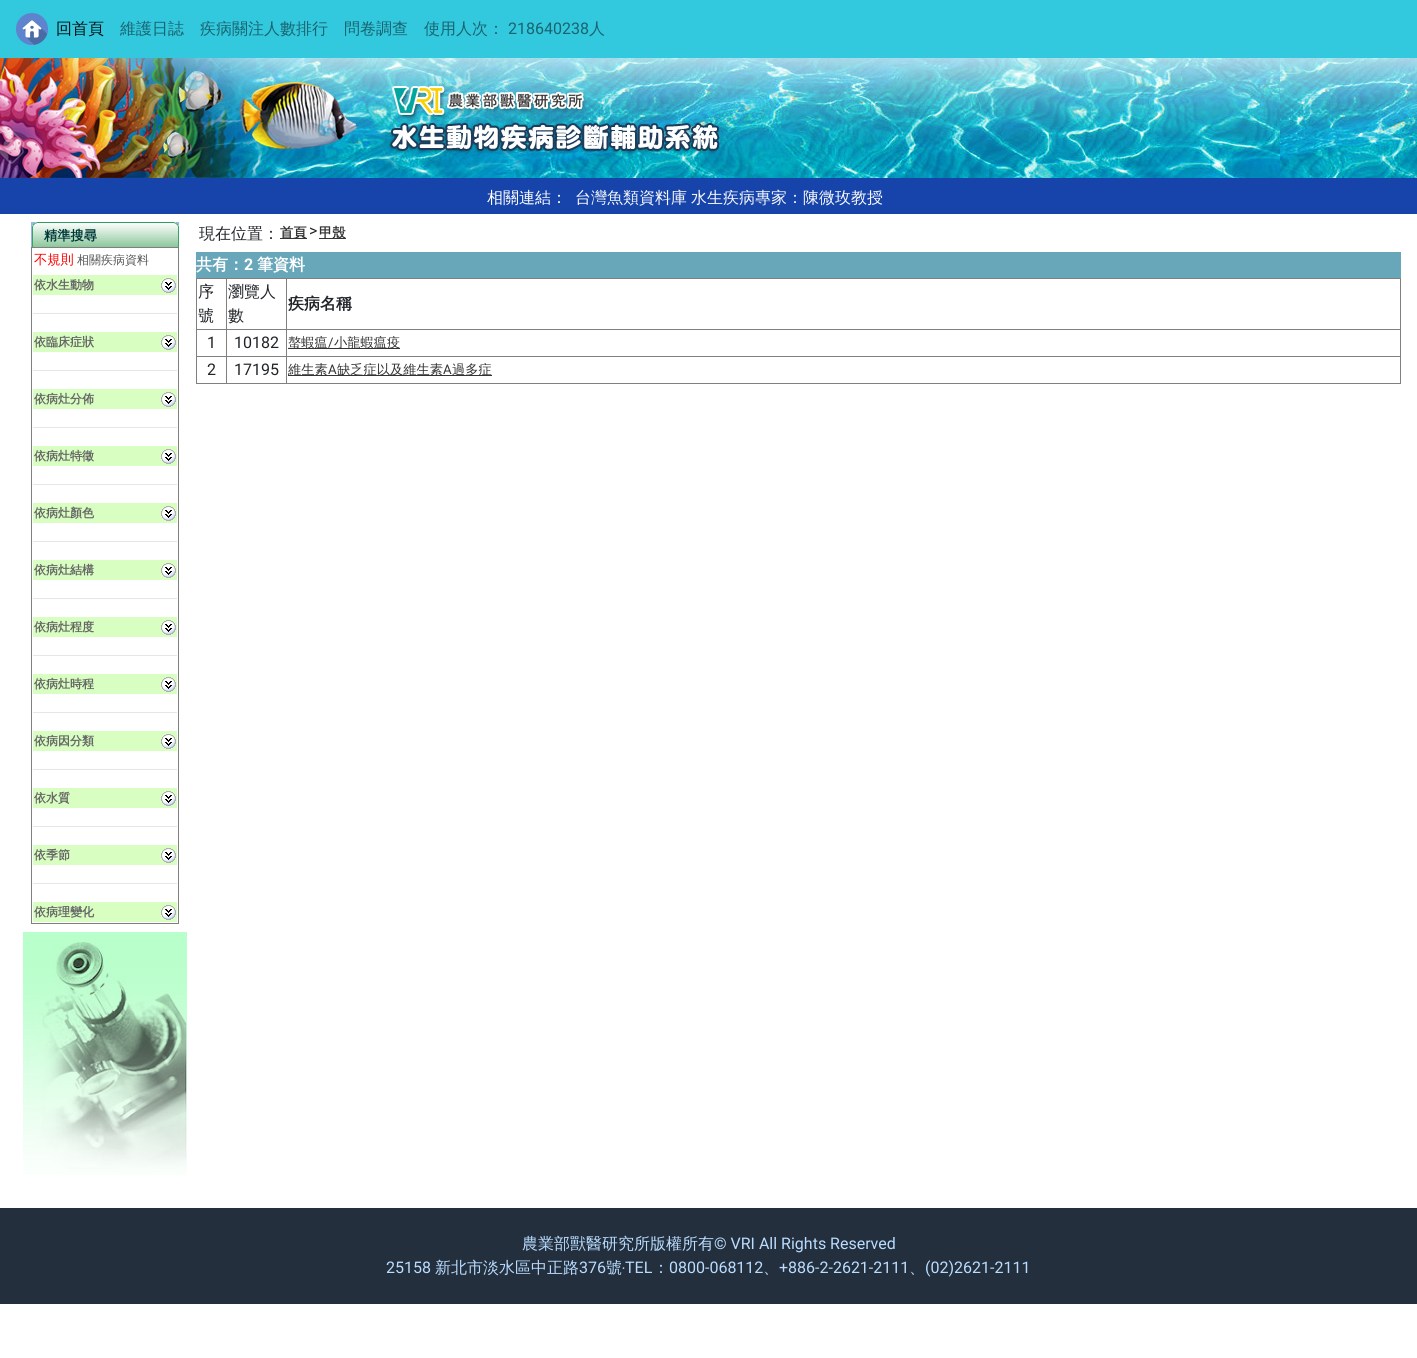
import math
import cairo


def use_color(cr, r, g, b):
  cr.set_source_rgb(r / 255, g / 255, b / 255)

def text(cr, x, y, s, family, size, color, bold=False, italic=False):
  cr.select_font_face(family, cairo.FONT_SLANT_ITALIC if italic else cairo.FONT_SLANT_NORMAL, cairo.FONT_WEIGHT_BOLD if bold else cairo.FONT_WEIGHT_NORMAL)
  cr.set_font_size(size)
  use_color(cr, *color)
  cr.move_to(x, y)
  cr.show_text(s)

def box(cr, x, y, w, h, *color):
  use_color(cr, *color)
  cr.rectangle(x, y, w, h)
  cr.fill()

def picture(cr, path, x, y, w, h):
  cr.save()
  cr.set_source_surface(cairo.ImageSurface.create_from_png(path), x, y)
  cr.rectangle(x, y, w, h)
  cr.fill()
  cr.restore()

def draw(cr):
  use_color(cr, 255, 255, 255)
  cr.paint()
  box(cr, 0, 0, 1417, 58, 50, 200, 222)
  picture(cr, "img_01.png", 16, 13, 32, 32)
  picture(cr, "img_02.png", 0, 58, 1417, 120)
  box(cr, 0, 178, 1417, 36, 23, 68, 171)
  box(cr, 31, 222, 148, 25, 149, 183, 232)
  picture(cr, "img_03.png", 32, 222, 7, 25)
  picture(cr, "img_04.png", 39, 222, 133, 25)
  picture(cr, "img_05.png", 172, 222, 7, 25)
  box(cr, 31, 247, 148, 1, 128, 128, 128)
  box(cr, 178, 247, 1, 677, 128, 128, 128)
  box(cr, 31, 923, 148, 1, 128, 128, 128)
  box(cr, 31, 247, 1, 677, 128, 128, 128)
  box(cr, 33, 275, 144, 20, 216, 254, 193)
  picture(cr, "img_06.png", 161, 278, 15, 15)
  box(cr, 33, 313, 144, 1, 230, 230, 230)
  box(cr, 33, 332, 144, 20, 216, 254, 193)
  picture(cr, "img_06.png", 161, 335, 15, 15)
  box(cr, 33, 370, 144, 1, 230, 230, 230)
  box(cr, 33, 389, 144, 20, 216, 254, 193)
  picture(cr, "img_06.png", 161, 392, 15, 15)
  box(cr, 33, 427, 144, 1, 230, 230, 230)
  box(cr, 33, 446, 144, 20, 216, 254, 193)
  picture(cr, "img_06.png", 161, 449, 15, 15)
  box(cr, 33, 484, 144, 1, 230, 230, 230)
  box(cr, 33, 503, 144, 20, 216, 254, 193)
  picture(cr, "img_06.png", 161, 506, 15, 15)
  box(cr, 33, 541, 144, 1, 230, 230, 230)
  box(cr, 33, 560, 144, 20, 216, 254, 193)
  picture(cr, "img_06.png", 161, 563, 15, 15)
  box(cr, 33, 598, 144, 1, 230, 230, 230)
  box(cr, 33, 617, 144, 20, 216, 254, 193)
  picture(cr, "img_06.png", 161, 620, 15, 15)
  box(cr, 33, 655, 144, 1, 230, 230, 230)
  box(cr, 33, 674, 144, 20, 216, 254, 193)
  picture(cr, "img_06.png", 161, 677, 15, 15)
  box(cr, 33, 712, 144, 1, 230, 230, 230)
  box(cr, 33, 731, 144, 20, 216, 254, 193)
  picture(cr, "img_06.png", 161, 734, 15, 15)
  box(cr, 33, 769, 144, 1, 230, 230, 230)
  box(cr, 33, 788, 144, 20, 216, 254, 193)
  picture(cr, "img_06.png", 161, 791, 15, 15)
  box(cr, 33, 826, 144, 1, 230, 230, 230)
  box(cr, 33, 845, 144, 20, 216, 254, 193)
  picture(cr, "img_06.png", 161, 848, 15, 15)
  box(cr, 33, 883, 144, 1, 230, 230, 230)
  box(cr, 33, 902, 144, 20, 216, 254, 193)
  picture(cr, "img_06.png", 161, 905, 15, 15)
  picture(cr, "img_07.png", 23, 932, 164, 243)
  box(cr, 280, 238, 27, 1, 51, 51, 51)
  box(cr, 319, 238, 27, 1, 51, 51, 51)
  box(cr, 196, 252, 1205, 26, 104, 167, 186)
  box(cr, 196, 278, 1205, 1, 128, 128, 128)
  box(cr, 1400, 278, 1, 106, 128, 128, 128)
  box(cr, 196, 383, 1205, 1, 128, 128, 128)
  box(cr, 196, 278, 1, 106, 128, 128, 128)
  box(cr, 286, 329, 1115, 1, 128, 128, 128)
  box(cr, 286, 356, 1115, 1, 128, 128, 128)
  box(cr, 286, 356, 1, 28, 128, 128, 128)
  box(cr, 226, 356, 61, 1, 128, 128, 128)
  box(cr, 286, 329, 1, 28, 128, 128, 128)
  box(cr, 226, 329, 61, 1, 128, 128, 128)
  box(cr, 226, 356, 1, 28, 128, 128, 128)
  box(cr, 196, 356, 31, 1, 128, 128, 128)
  box(cr, 226, 329, 1, 28, 128, 128, 128)
  box(cr, 196, 329, 31, 1, 128, 128, 128)
  box(cr, 226, 278, 1, 52, 128, 128, 128)
  box(cr, 286, 278, 1, 52, 128, 128, 128)
  box(cr, 288, 348, 112, 1, 51, 51, 51)
  box(cr, 288, 375, 204, 1, 51, 51, 51)
  box(cr, 0, 1208, 1417, 96, 35, 47, 61)
  text(cr, 56, 34, "回首頁", "WenQuanYi Zen Hei Medium", 16, (5, 20, 22))
  text(cr, 120, 34, "維護日誌", "WenQuanYi Zen Hei Medium", 16, (25, 100, 111))
  text(cr, 200, 34, "疾病關注人數排行", "WenQuanYi Zen Hei Medium", 16, (25, 100, 111))
  text(cr, 344, 34, "問卷調查", "WenQuanYi Zen Hei Medium", 16, (25, 100, 111))
  text(cr, 424, 34, "使用人次：", "WenQuanYi Zen Hei Medium", 16, (25, 100, 111))
  text(cr, 508, 34, "218640238", "Roboto", 16, (25, 100, 111))
  text(cr, 589, 34, "人", "WenQuanYi Zen Hei Medium", 16, (25, 100, 111))
  text(cr, 487, 203, "相關連結：", "WenQuanYi Zen Hei Medium", 16, (255, 255, 255))
  text(cr, 575, 203, "台灣魚類資料庫", "WenQuanYi Zen Hei Medium", 16, (248, 249, 250))
  text(cr, 691, 203, "水生疾病專家：陳微玫教授", "WenQuanYi Zen Hei Medium", 16, (248, 249, 250))
  text(cr, 44, 240, "精準搜尋", "WenQuanYi Zen Hei", 13.25, (0, 57, 57), bold=True)
  text(cr, 34, 264, "不規則", "WenQuanYi Zen Hei Medium", 13.25, (255, 0, 0))
  text(cr, 77, 264, "相關疾病資料", "WenQuanYi Zen Hei Medium", 12, (85, 85, 85))
  text(cr, 34, 289, "依水生動物", "WenQuanYi Zen Hei", 12, (102, 102, 102), bold=True)
  text(cr, 34, 346, "依臨床症狀", "WenQuanYi Zen Hei", 12, (102, 102, 102), bold=True)
  text(cr, 34, 403, "依病灶分佈", "WenQuanYi Zen Hei", 12, (102, 102, 102), bold=True)
  text(cr, 34, 460, "依病灶特徵", "WenQuanYi Zen Hei", 12, (102, 102, 102), bold=True)
  text(cr, 34, 517, "依病灶顏色", "WenQuanYi Zen Hei", 12, (102, 102, 102), bold=True)
  text(cr, 34, 574, "依病灶結構", "WenQuanYi Zen Hei", 12, (102, 102, 102), bold=True)
  text(cr, 34, 631, "依病灶程度", "WenQuanYi Zen Hei", 12, (102, 102, 102), bold=True)
  text(cr, 34, 688, "依病灶時程", "WenQuanYi Zen Hei", 12, (102, 102, 102), bold=True)
  text(cr, 34, 745, "依病因分類", "WenQuanYi Zen Hei", 12, (102, 102, 102), bold=True)
  text(cr, 34, 802, "依水質", "WenQuanYi Zen Hei", 12, (102, 102, 102), bold=True)
  text(cr, 34, 859, "依季節", "WenQuanYi Zen Hei", 12, (102, 102, 102), bold=True)
  text(cr, 34, 916, "依病理變化", "WenQuanYi Zen Hei", 12, (102, 102, 102), bold=True)
  text(cr, 199, 239, "現在位置：", "WenQuanYi Zen Hei Medium", 16, (33, 37, 41))
  text(cr, 280, 237, "首頁", "WenQuanYi Zen Hei", 13.25, (51, 51, 51), bold=True)
  text(cr, 309, 236, ">", "Roboto", 16, (33, 37, 41))
  text(cr, 319, 237, "甲殼", "WenQuanYi Zen Hei", 13.25, (51, 51, 51), bold=True)
  text(cr, 196, 270, "共有：", "WenQuanYi Zen Hei", 16, (255, 255, 255), bold=True)
  text(cr, 244, 270, "2", "Roboto", 16, (255, 255, 255), bold=True)
  text(cr, 257, 270, "筆資料", "WenQuanYi Zen Hei", 16, (255, 255, 255), bold=True)
  text(cr, 198, 297, "序", "WenQuanYi Zen Hei Medium", 16, (33, 37, 41))
  text(cr, 198, 321, "號", "WenQuanYi Zen Hei Medium", 16, (33, 37, 41))
  text(cr, 228, 297, "瀏覽人", "WenQuanYi Zen Hei Medium", 16, (33, 37, 41))
  text(cr, 228, 321, "數", "WenQuanYi Zen Hei Medium", 16, (33, 37, 41))
  text(cr, 288, 309, "疾病名稱", "WenQuanYi Zen Hei", 16, (33, 37, 41), bold=True)
  text(cr, 207, 348, "1", "Roboto", 16, (33, 37, 41))
  text(cr, 234, 348, "10182", "Roboto", 16, (33, 37, 41))
  text(cr, 288, 347, "螯蝦瘟", "WenQuanYi Zen Hei Medium", 13.25, (51, 51, 51))
  text(cr, 328, 347, "/", "Roboto", 13.25, (51, 51, 51))
  text(cr, 334, 347, "小龍蝦瘟疫", "WenQuanYi Zen Hei Medium", 13.25, (51, 51, 51))
  text(cr, 207, 375, "2", "Roboto", 16, (33, 37, 41))
  text(cr, 234, 375, "17195", "Roboto", 16, (33, 37, 41))
  text(cr, 288, 374, "維生素", "WenQuanYi Zen Hei Medium", 13.25, (51, 51, 51))
  text(cr, 328, 374, "A", "Roboto", 13.25, (51, 51, 51))
  text(cr, 337, 374, "缺乏症以及維生素", "WenQuanYi Zen Hei Medium", 13.25, (51, 51, 51))
  text(cr, 443, 374, "A", "Roboto", 13.25, (51, 51, 51))
  text(cr, 452, 374, "過多症", "WenQuanYi Zen Hei Medium", 13.25, (51, 51, 51))
  text(cr, 522, 1249, "農業部獸醫研究所版權所有", "WenQuanYi Zen Hei Medium", 16, (185, 220, 255))
  text(cr, 714, 1249, "© VRI All Rights Reserved", "Roboto", 16, (185, 220, 255))
  text(cr, 386, 1273, "25158", "Roboto", 16, (185, 220, 255))
  text(cr, 435, 1273, "新北市淡水區中正路", "WenQuanYi Zen Hei Medium", 16, (185, 220, 255))
  text(cr, 579, 1273, "376", "Roboto", 16, (185, 220, 255))
  text(cr, 606, 1273, "號", "WenQuanYi Zen Hei Medium", 16, (185, 220, 255))
  text(cr, 622, 1273, "‧TEL", "Roboto", 16, (185, 220, 255))
  text(cr, 653, 1273, "：", "WenQuanYi Zen Hei Medium", 16, (185, 220, 255))
  text(cr, 669, 1273, "0800-068112", "Roboto", 16, (185, 220, 255))
  text(cr, 763, 1273, "、", "WenQuanYi Zen Hei Medium", 16, (185, 220, 255))
  text(cr, 779, 1273, "+886-2-2621-2111", "Roboto", 16, (185, 220, 255))
  text(cr, 909, 1273, "、", "WenQuanYi Zen Hei Medium", 16, (185, 220, 255))
  text(cr, 925, 1273, "(02)2621-2111", "Roboto", 16, (185, 220, 255))


surface = cairo.ImageSurface(cairo.FORMAT_RGB24, 1417, 1358)
cr = cairo.Context(surface)
options = cairo.FontOptions()
options.set_hint_metrics(cairo.HINT_METRICS_OFF)
options.set_hint_style(cairo.HINT_STYLE_NONE)
cr.set_font_options(options)
cr.set_miter_limit(4)
draw(cr)
surface.write_to_png("out.png")
